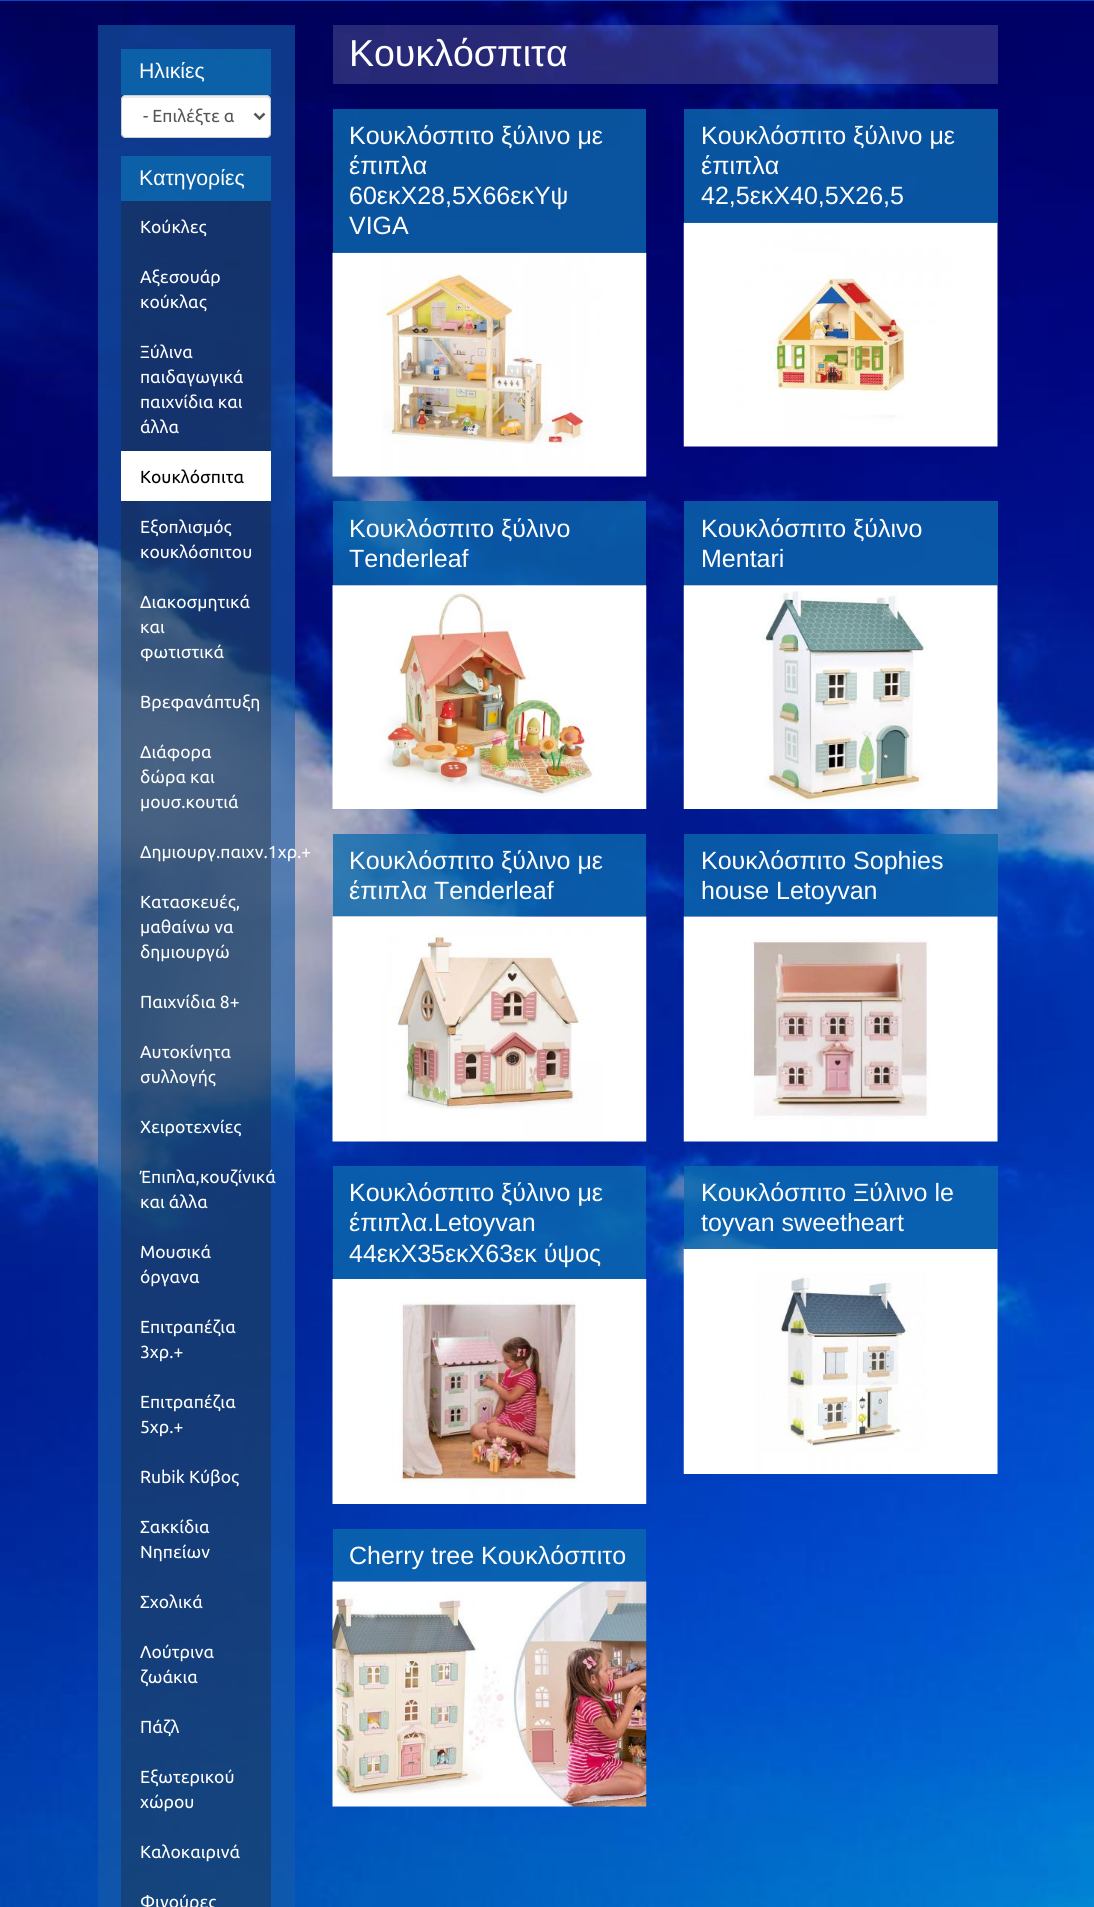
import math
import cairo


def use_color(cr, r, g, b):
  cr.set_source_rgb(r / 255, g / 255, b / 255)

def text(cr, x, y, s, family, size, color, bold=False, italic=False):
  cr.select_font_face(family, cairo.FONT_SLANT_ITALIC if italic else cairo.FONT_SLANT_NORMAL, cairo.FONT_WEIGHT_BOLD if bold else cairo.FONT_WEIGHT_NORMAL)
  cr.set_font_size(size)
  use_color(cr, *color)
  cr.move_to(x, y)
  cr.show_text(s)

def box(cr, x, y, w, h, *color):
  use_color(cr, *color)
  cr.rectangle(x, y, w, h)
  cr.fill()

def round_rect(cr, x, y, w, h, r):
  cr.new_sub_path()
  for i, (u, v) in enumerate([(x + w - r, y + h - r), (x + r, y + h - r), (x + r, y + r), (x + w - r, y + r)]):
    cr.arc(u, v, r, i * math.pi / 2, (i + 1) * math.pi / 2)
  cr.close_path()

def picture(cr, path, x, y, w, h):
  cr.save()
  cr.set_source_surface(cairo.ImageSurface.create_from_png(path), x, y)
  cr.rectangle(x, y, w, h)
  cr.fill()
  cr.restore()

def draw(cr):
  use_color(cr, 2, 71, 196)
  cr.paint()
  picture(cr, "img_01.png", 0, 1, 1094, 1906)
  cr.set_source_rgba(0.094, 0.357, 0.651, 0.62)
  cr.rectangle(98, 25, 197, 1882)
  cr.fill()
  cr.set_source_rgba(0, 0, 0, 0.05)
  cr.rectangle(98, 25, 197, 1)
  cr.fill()
  cr.set_source_rgba(0.047, 0.42, 0.682, 0.78)
  cr.rectangle(121, 49, 150, 46)
  cr.fill()
  use_color(cr, 255, 255, 255)
  round_rect(cr, 121, 95, 150, 43, 5)
  cr.fill()
  use_color(cr, 236, 236, 236)
  cr.new_path()
  cr.move_to(126, 98)
  cr.line_to(266, 98)
  cr.curve_to(268, 98, 270, 99, 270, 101)
  cr.curve_to(270, 99, 270, 97, 268, 96)
  cr.line_to(127, 96)
  cr.line_to(125, 96)
  cr.line_to(123, 99)
  cr.close_path()
  cr.fill()
  round_rect(cr, 121.5, 95.5, 149, 42, 4.5)
  use_color(cr, 204, 204, 204)
  cr.set_line_width(1)
  cr.stroke()
  cr.new_path()
  cr.move_to(254.5, 113.5)
  cr.line_to(259.5, 118.5)
  cr.line_to(264.5, 113.5)
  use_color(cr, 85, 85, 85)
  cr.set_line_width(2.5)
  cr.stroke()
  cr.set_source_rgba(0.047, 0.42, 0.682, 0.78)
  cr.rectangle(121, 156, 150, 45)
  cr.fill()
  cr.set_source_rgba(0.129, 0.141, 0.153, 0.35)
  cr.rectangle(121, 201, 150, 50)
  cr.fill()
  cr.rectangle(121, 251, 150, 75)
  cr.fill()
  cr.rectangle(121, 326, 150, 125)
  cr.fill()
  box(cr, 121, 451, 150, 50, 255, 255, 255)
  cr.set_source_rgba(0.129, 0.141, 0.153, 0.35)
  cr.rectangle(121, 501, 150, 75)
  cr.fill()
  cr.rectangle(121, 576, 150, 100)
  cr.fill()
  cr.rectangle(121, 676, 150, 50)
  cr.fill()
  cr.rectangle(121, 726, 150, 100)
  cr.fill()
  cr.rectangle(121, 826, 150, 50)
  cr.fill()
  cr.rectangle(121, 876, 150, 100)
  cr.fill()
  cr.rectangle(121, 976, 150, 50)
  cr.fill()
  cr.rectangle(121, 1026, 150, 75)
  cr.fill()
  cr.rectangle(121, 1101, 150, 50)
  cr.fill()
  cr.rectangle(121, 1151, 150, 75)
  cr.fill()
  cr.rectangle(121, 1226, 150, 75)
  cr.fill()
  cr.rectangle(121, 1301, 150, 75)
  cr.fill()
  cr.rectangle(121, 1376, 150, 75)
  cr.fill()
  cr.rectangle(121, 1451, 150, 50)
  cr.fill()
  cr.rectangle(121, 1501, 150, 75)
  cr.fill()
  cr.rectangle(121, 1576, 150, 50)
  cr.fill()
  cr.rectangle(121, 1626, 150, 75)
  cr.fill()
  cr.rectangle(121, 1701, 150, 50)
  cr.fill()
  cr.rectangle(121, 1751, 150, 75)
  cr.fill()
  cr.rectangle(121, 1826, 150, 50)
  cr.fill()
  cr.rectangle(121, 1876, 150, 31)
  cr.fill()
  cr.set_source_rgba(1, 1, 1, 0.16)
  cr.rectangle(333, 25, 665, 59)
  cr.fill()
  picture(cr, "img_02.png", 332, 252, 315, 225)
  cr.set_source_rgba(0.047, 0.42, 0.682, 0.78)
  cr.rectangle(333, 109, 313, 144)
  cr.fill()
  picture(cr, "img_03.png", 683, 222, 315, 225)
  cr.rectangle(684, 109, 314, 114)
  cr.fill()
  cr.rectangle(333, 501, 313, 84)
  cr.fill()
  picture(cr, "img_04.png", 332, 585, 315, 224)
  cr.rectangle(684, 501, 314, 84)
  cr.fill()
  picture(cr, "img_05.png", 683, 585, 315, 224)
  cr.rectangle(333, 834, 313, 82)
  cr.fill()
  picture(cr, "img_06.png", 332, 916, 315, 226)
  cr.rectangle(684, 834, 314, 82)
  cr.fill()
  picture(cr, "img_07.png", 683, 916, 315, 226)
  cr.rectangle(333, 1166, 313, 113)
  cr.fill()
  picture(cr, "img_08.png", 332, 1279, 315, 225)
  cr.rectangle(684, 1166, 314, 83)
  cr.fill()
  picture(cr, "img_09.png", 683, 1249, 315, 225)
  cr.rectangle(333, 1529, 313, 52)
  cr.fill()
  picture(cr, "img_10.png", 332, 1581, 315, 226)
  text(cr, 139, 78, "Ηλικίες", "Liberation Sans", 21.25, (255, 255, 255))
  text(cr, 143, 122, "- Επιλέξτε α", "Ubuntu", 17.5, (85, 85, 85))
  text(cr, 139, 185, "Κατηγορίες", "Liberation Sans", 21.25, (255, 255, 255))
  text(cr, 140, 233, "Κούκλες", "Ubuntu", 17.5, (255, 255, 255))
  text(cr, 140, 283, "Αξεσουάρ", "Ubuntu", 17.5, (255, 255, 255))
  text(cr, 140, 308, "κούκλας", "Ubuntu", 17.5, (255, 255, 255))
  text(cr, 140, 358, "Ξύλινα", "Ubuntu", 17.5, (255, 255, 255))
  text(cr, 140, 383, "παιδαγωγικά", "Ubuntu", 17.5, (255, 255, 255))
  text(cr, 140, 408, "παιχνίδια και", "Ubuntu", 17.5, (255, 255, 255))
  text(cr, 140, 433, "άλλα", "Ubuntu", 17.5, (255, 255, 255))
  text(cr, 140, 483, "Κουκλόσπιτα", "Ubuntu", 17.5, (0, 0, 0))
  text(cr, 140, 533, "Εξοπλισμός", "Ubuntu", 17.5, (255, 255, 255))
  text(cr, 140, 558, "κουκλόσπιτου", "Ubuntu", 17.5, (255, 255, 255))
  text(cr, 140, 608, "Διακοσμητικά", "Ubuntu", 17.5, (255, 255, 255))
  text(cr, 140, 633, "και", "Ubuntu", 17.5, (255, 255, 255))
  text(cr, 140, 658, "φωτιστικά", "Ubuntu", 17.5, (255, 255, 255))
  text(cr, 140, 708, "Βρεφανάπτυξη", "Ubuntu", 17.5, (255, 255, 255))
  text(cr, 140, 758, "Διάφορα", "Ubuntu", 17.5, (255, 255, 255))
  text(cr, 140, 783, "δώρα και", "Ubuntu", 17.5, (255, 255, 255))
  text(cr, 140, 808, "μουσ.κουτιά", "Ubuntu", 17.5, (255, 255, 255))
  text(cr, 140, 858, "Δημιουργ.παιχν.1χρ.+", "Ubuntu", 17.5, (255, 255, 255))
  text(cr, 140, 908, "Κατασκευές,", "Ubuntu", 17.5, (255, 255, 255))
  text(cr, 140, 933, "μαθαίνω να", "Ubuntu", 17.5, (255, 255, 255))
  text(cr, 140, 958, "δημιουργώ", "Ubuntu", 17.5, (255, 255, 255))
  text(cr, 140, 1008, "Παιχνίδια 8+", "Ubuntu", 17.5, (255, 255, 255))
  text(cr, 140, 1058, "Αυτοκίνητα", "Ubuntu", 17.5, (255, 255, 255))
  text(cr, 140, 1083, "συλλογής", "Ubuntu", 17.5, (255, 255, 255))
  text(cr, 140, 1133, "Χειροτεχνίες", "Ubuntu", 17.5, (255, 255, 255))
  text(cr, 140, 1183, "Έπιπλα,κουζίνικά", "Ubuntu", 17.5, (255, 255, 255))
  text(cr, 140, 1208, "και άλλα", "Ubuntu", 17.5, (255, 255, 255))
  text(cr, 140, 1258, "Μουσικά", "Ubuntu", 17.5, (255, 255, 255))
  text(cr, 140, 1283, "όργανα", "Ubuntu", 17.5, (255, 255, 255))
  text(cr, 140, 1333, "Επιτραπέζια", "Ubuntu", 17.5, (255, 255, 255))
  text(cr, 140, 1358, "3χρ.+", "Ubuntu", 17.5, (255, 255, 255))
  text(cr, 140, 1408, "Επιτραπέζια", "Ubuntu", 17.5, (255, 255, 255))
  text(cr, 140, 1433, "5χρ.+", "Ubuntu", 17.5, (255, 255, 255))
  text(cr, 140, 1483, "Rubik Κύβος", "Ubuntu", 17.5, (255, 255, 255))
  text(cr, 140, 1533, "Σακκίδια", "Ubuntu", 17.5, (255, 255, 255))
  text(cr, 140, 1558, "Νηπείων", "Ubuntu", 17.5, (255, 255, 255))
  text(cr, 140, 1608, "Σχολικά", "Ubuntu", 17.5, (255, 255, 255))
  text(cr, 140, 1658, "Λούτρινα", "Ubuntu", 17.5, (255, 255, 255))
  text(cr, 140, 1683, "ζωάκια", "Ubuntu", 17.5, (255, 255, 255))
  text(cr, 140, 1733, "Πάζλ", "Ubuntu", 17.5, (255, 255, 255))
  text(cr, 140, 1783, "Εξωτερικού", "Ubuntu", 17.5, (255, 255, 255))
  text(cr, 140, 1808, "χώρου", "Ubuntu", 17.5, (255, 255, 255))
  text(cr, 140, 1858, "Καλοκαιρινά", "Ubuntu", 17.5, (255, 255, 255))
  text(cr, 140, 1908, "Φιγούρες", "Ubuntu", 17.5, (255, 255, 255))
  text(cr, 349, 66, "Κουκλόσπιτα", "Liberation Sans", 37.5, (255, 255, 255))
  text(cr, 349, 144, "Κουκλόσπιτο ξύλινο με", "Liberation Sans", 25, (255, 255, 255))
  text(cr, 349, 174, "έπιπλα", "Liberation Sans", 25, (255, 255, 255))
  text(cr, 349, 204, "60εκΧ28,5Χ66εκΥψ", "Liberation Sans", 25, (255, 255, 255))
  text(cr, 349, 234, "VIGA", "Liberation Sans", 25, (255, 255, 255))
  text(cr, 701, 144, "Κουκλόσπιτο ξύλινο με", "Liberation Sans", 25, (255, 255, 255))
  text(cr, 701, 174, "έπιπλα", "Liberation Sans", 25, (255, 255, 255))
  text(cr, 701, 204, "42,5εκΧ40,5Χ26,5", "Liberation Sans", 25, (255, 255, 255))
  text(cr, 349, 537, "Κουκλόσπιτο ξύλινο", "Liberation Sans", 25, (255, 255, 255))
  text(cr, 349, 567, "Tenderleaf", "Liberation Sans", 25, (255, 255, 255))
  text(cr, 701, 537, "Κουκλόσπιτο ξύλινο", "Liberation Sans", 25, (255, 255, 255))
  text(cr, 701, 567, "Mentari", "Liberation Sans", 25, (255, 255, 255))
  text(cr, 349, 869, "Κουκλόσπιτο ξύλινο με", "Liberation Sans", 25, (255, 255, 255))
  text(cr, 349, 899, "έπιπλα Tenderleaf", "Liberation Sans", 25, (255, 255, 255))
  text(cr, 701, 869, "Κουκλόσπιτο Sophies", "Liberation Sans", 25, (255, 255, 255))
  text(cr, 701, 899, "house Letoyvan", "Liberation Sans", 25, (255, 255, 255))
  text(cr, 349, 1201, "Κουκλόσπιτο ξύλινο με", "Liberation Sans", 25, (255, 255, 255))
  text(cr, 349, 1231, "έπιπλα.Letoyvan", "Liberation Sans", 25, (255, 255, 255))
  text(cr, 349, 1262, "44εκX35εκX63εκ ύψος", "Liberation Sans", 25, (255, 255, 255))
  text(cr, 701, 1201, "Κουκλόσπιτο Ξύλινο le", "Liberation Sans", 25, (255, 255, 255))
  text(cr, 701, 1231, "toyvan sweetheart", "Liberation Sans", 25, (255, 255, 255))
  text(cr, 349, 1564, "Cherry tree Κουκλόσπιτο", "Liberation Sans", 25, (255, 255, 255))


surface = cairo.ImageSurface(cairo.FORMAT_RGB24, 1094, 1907)
cr = cairo.Context(surface)
options = cairo.FontOptions()
options.set_hint_metrics(cairo.HINT_METRICS_OFF)
options.set_hint_style(cairo.HINT_STYLE_NONE)
cr.set_font_options(options)
cr.set_miter_limit(4)
draw(cr)
surface.write_to_png("out.png")
